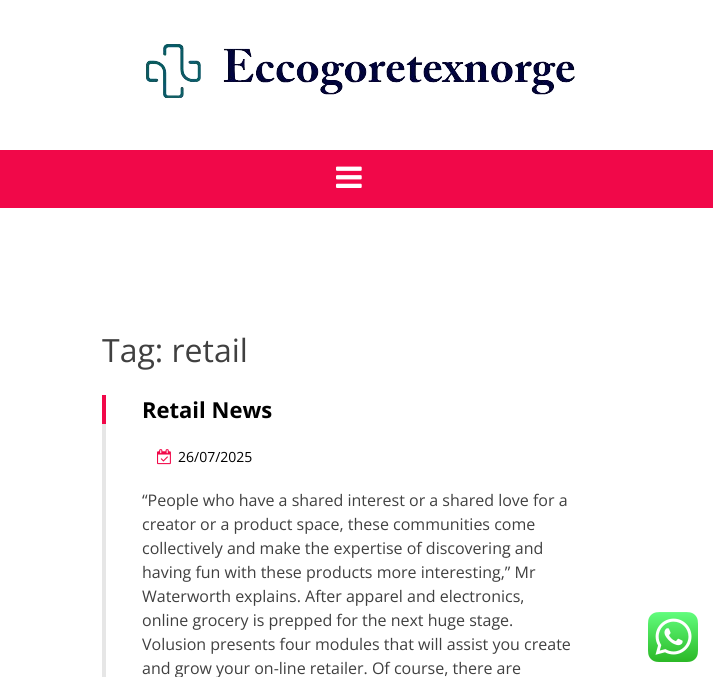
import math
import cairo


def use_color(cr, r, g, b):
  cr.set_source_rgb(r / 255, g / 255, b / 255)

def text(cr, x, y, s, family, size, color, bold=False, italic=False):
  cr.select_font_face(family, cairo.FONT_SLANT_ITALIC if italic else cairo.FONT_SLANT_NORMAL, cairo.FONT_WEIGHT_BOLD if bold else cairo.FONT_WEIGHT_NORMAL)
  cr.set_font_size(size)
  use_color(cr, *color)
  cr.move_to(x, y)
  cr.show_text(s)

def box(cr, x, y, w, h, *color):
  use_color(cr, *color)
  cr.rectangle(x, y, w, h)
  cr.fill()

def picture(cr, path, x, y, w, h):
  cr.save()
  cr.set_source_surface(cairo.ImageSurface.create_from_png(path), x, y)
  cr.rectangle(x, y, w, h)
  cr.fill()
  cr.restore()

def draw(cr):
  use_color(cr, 255, 255, 255)
  cr.paint()
  picture(cr, "img_01.png", 146, 44, 429, 54)
  box(cr, 0, 150, 713, 58, 241, 8, 73)
  picture(cr, "img_02.png", 336, 166, 26, 22)
  box(cr, 102, 395, 4, 29, 241, 8, 73)
  box(cr, 102, 424, 4, 253, 230, 230, 230)
  picture(cr, "img_03.png", 157, 449, 14, 16)
  picture(cr, "img_04.png", 648, 612, 50, 50)
  text(cr, 102, 362, "Tag: retail", "Open Sans", 32, (64, 64, 64))
  text(cr, 142, 418, "Retail News", "Open Sans", 22, (0, 0, 0), bold=True)
  text(cr, 178, 462, "26/07/2025", "Open Sans", 14, (0, 0, 0))
  text(cr, 142, 506, "“People who have a shared interest or a shared love for a", "Open Sans", 16, (64, 64, 64))
  text(cr, 142, 530, "creator or a product space, these communities come", "Open Sans", 16, (64, 64, 64))
  text(cr, 142, 554, "collectively and make the expertise of discovering and", "Open Sans", 16, (64, 64, 64))
  text(cr, 142, 578, "having fun with these products more interesting,” Mr", "Open Sans", 16, (64, 64, 64))
  text(cr, 142, 602, "Waterworth explains. After apparel and electronics,", "Open Sans", 16, (64, 64, 64))
  text(cr, 142, 626, "online grocery is prepped for the next huge stage.", "Open Sans", 16, (64, 64, 64))
  text(cr, 142, 650, "Volusion presents four modules that will assist you create", "Open Sans", 16, (64, 64, 64))
  text(cr, 142, 674, "and grow your on-line retailer. Of course, there are", "Open Sans", 16, (64, 64, 64))


surface = cairo.ImageSurface(cairo.FORMAT_RGB24, 713, 677)
cr = cairo.Context(surface)
options = cairo.FontOptions()
options.set_hint_metrics(cairo.HINT_METRICS_OFF)
options.set_hint_style(cairo.HINT_STYLE_NONE)
cr.set_font_options(options)
cr.set_miter_limit(4)
draw(cr)
surface.write_to_png("out.png")
